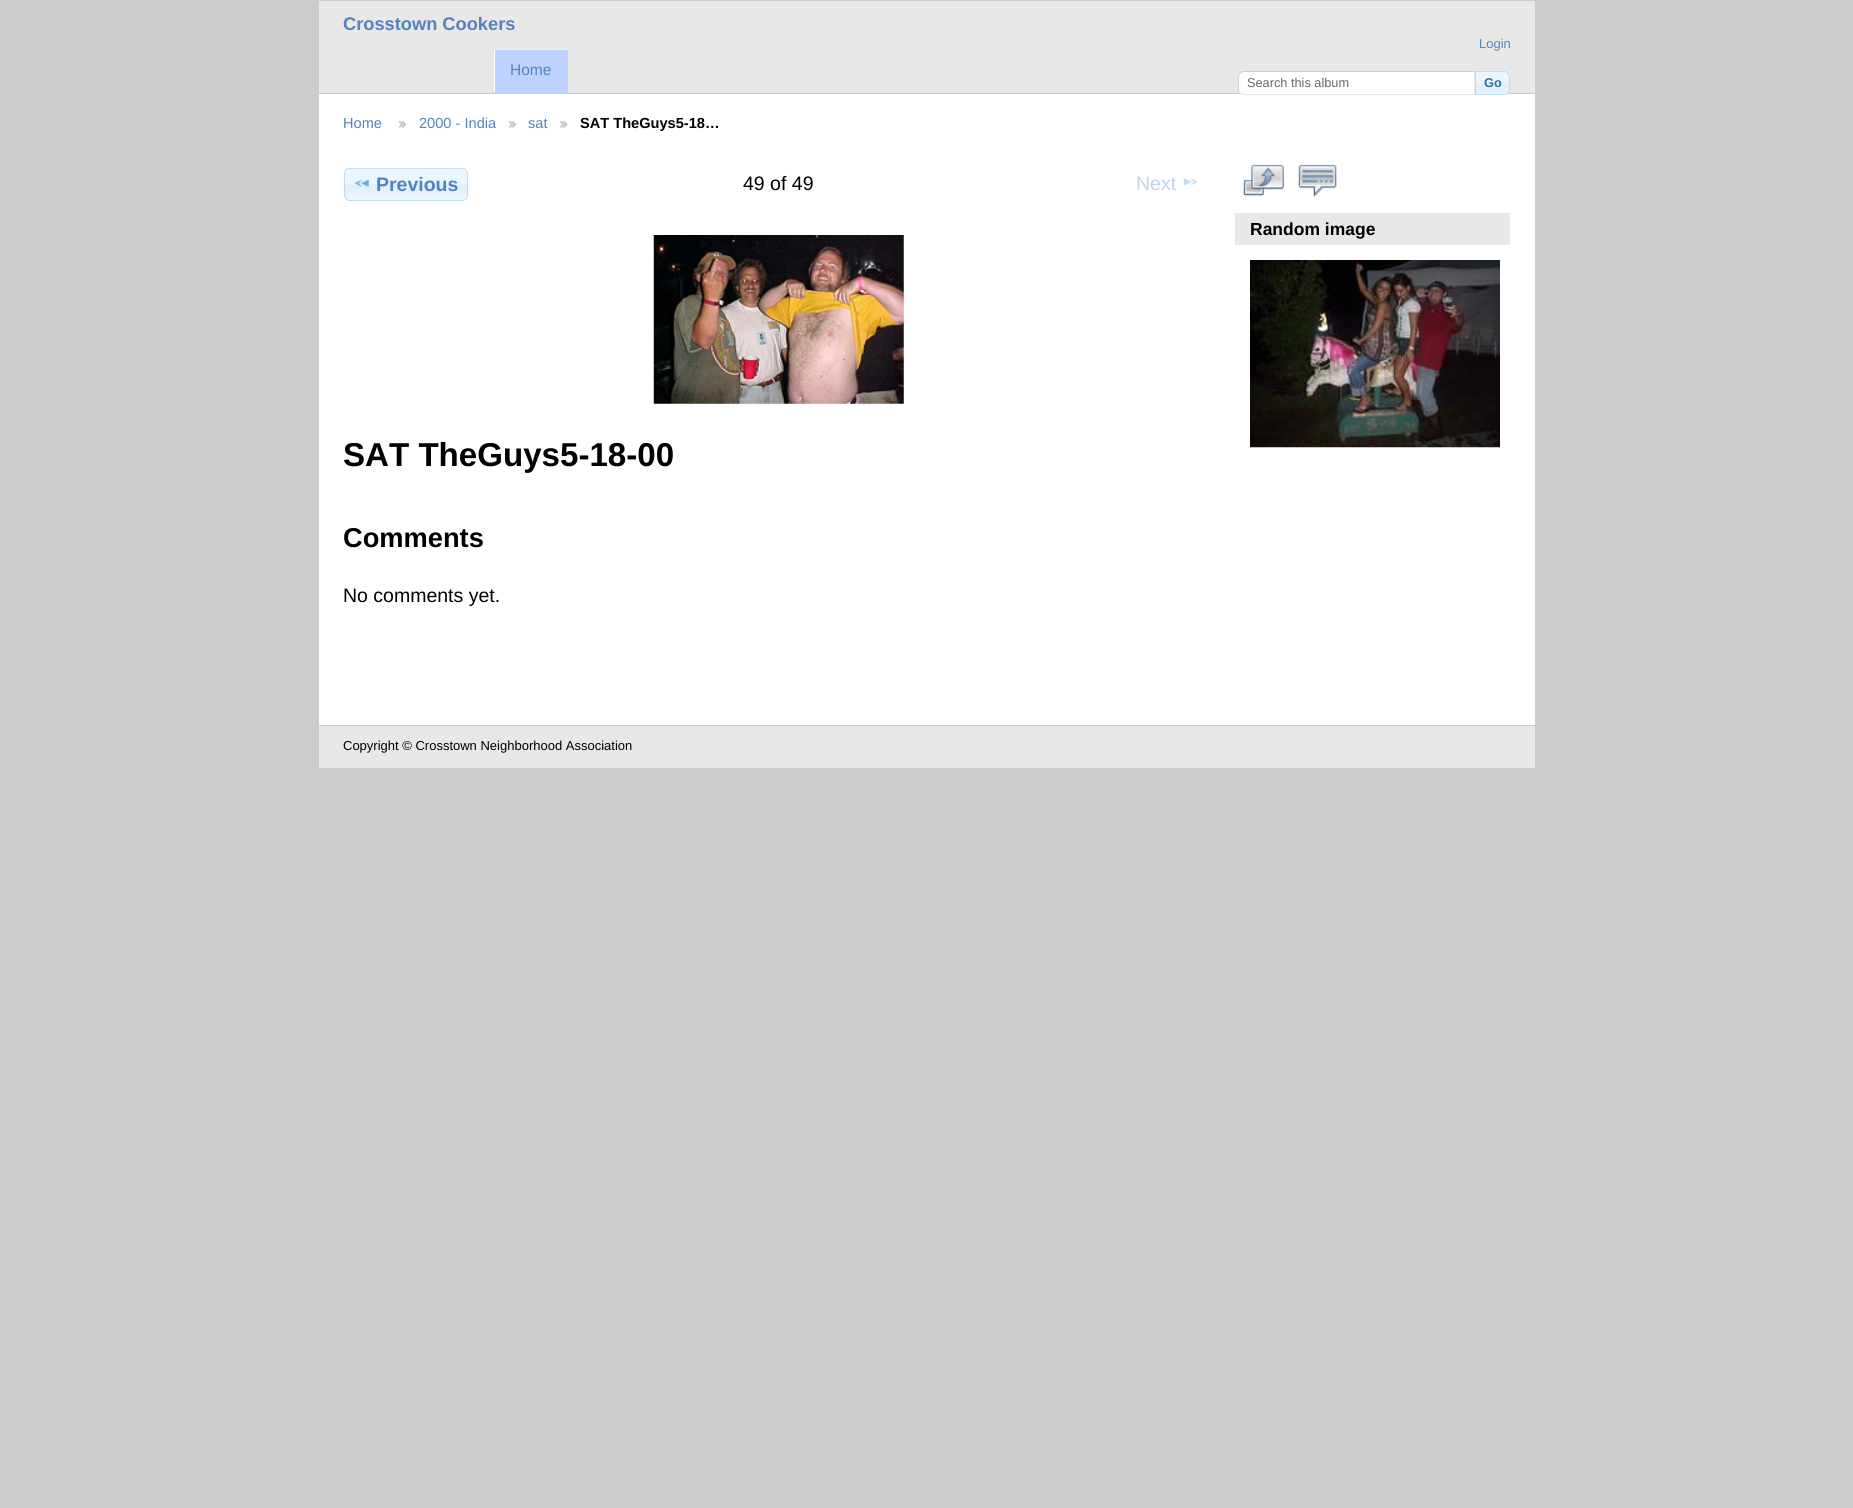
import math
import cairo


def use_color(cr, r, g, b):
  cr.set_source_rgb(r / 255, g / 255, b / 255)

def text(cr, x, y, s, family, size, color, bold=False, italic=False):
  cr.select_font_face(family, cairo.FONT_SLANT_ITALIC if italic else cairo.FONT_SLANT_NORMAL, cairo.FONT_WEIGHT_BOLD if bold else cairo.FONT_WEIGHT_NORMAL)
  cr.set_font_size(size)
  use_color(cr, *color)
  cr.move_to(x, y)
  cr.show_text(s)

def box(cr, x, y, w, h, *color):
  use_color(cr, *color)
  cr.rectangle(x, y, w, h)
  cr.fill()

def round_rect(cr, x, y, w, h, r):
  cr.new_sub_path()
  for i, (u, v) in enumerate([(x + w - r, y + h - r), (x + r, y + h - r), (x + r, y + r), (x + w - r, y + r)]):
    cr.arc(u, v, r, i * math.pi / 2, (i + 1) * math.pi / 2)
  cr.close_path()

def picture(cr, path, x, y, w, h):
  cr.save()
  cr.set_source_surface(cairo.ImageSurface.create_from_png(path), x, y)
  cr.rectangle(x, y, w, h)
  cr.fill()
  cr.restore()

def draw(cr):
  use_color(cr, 204, 204, 204)
  cr.paint()
  box(cr, 319, 94, 1216, 631, 255, 255, 255)
  box(cr, 319, 1, 1216, 92, 232, 232, 232)
  box(cr, 494, 49, 74, 44, 189, 210, 255)
  use_color(cr, 222, 233, 255)
  cr.new_path()
  cr.move_to(494, 49)
  cr.line_to(568, 49)
  cr.line_to(568, 50)
  cr.line_to(495, 50)
  cr.close_path()
  cr.fill()
  use_color(cr, 255, 255, 255)
  cr.new_path()
  cr.move_to(494, 92)
  cr.line_to(494, 49)
  cr.line_to(495, 50)
  cr.line_to(495, 92)
  cr.close_path()
  cr.fill()
  cr.new_path()
  cr.move_to(1244, 71)
  cr.line_to(1475, 71)
  cr.line_to(1475, 95)
  cr.line_to(1244, 95)
  cr.curve_to(1240.5, 95, 1238, 92.5, 1238, 89)
  cr.line_to(1238, 77)
  cr.curve_to(1238, 73.5, 1240.5, 71, 1244, 71)
  cr.close_path()
  cr.fill()
  use_color(cr, 204, 204, 204)
  cr.new_path()
  cr.move_to(1244, 72)
  cr.curve_to(1242, 72, 1241, 73, 1240, 74)
  cr.line_to(1239, 73)
  cr.line_to(1242, 71)
  cr.line_to(1475, 71)
  cr.line_to(1474, 72)
  cr.close_path()
  cr.fill()
  use_color(cr, 232, 232, 232)
  cr.new_path()
  cr.move_to(1475, 71)
  cr.line_to(1474, 72)
  cr.line_to(1474, 94)
  cr.line_to(1475, 95)
  cr.close_path()
  cr.fill()
  cr.new_path()
  cr.move_to(1475, 95)
  cr.line_to(1474, 94)
  cr.line_to(1243, 94)
  cr.line_to(1240, 92)
  cr.line_to(1239, 93)
  cr.curve_to(1240, 94, 1242, 95, 1244, 95)
  cr.close_path()
  cr.fill()
  use_color(cr, 204, 204, 204)
  cr.new_path()
  cr.move_to(1239.5, 93)
  cr.curve_to(1237, 90.5, 1238, 86.5, 1238, 83.5)
  cr.curve_to(1238, 80.5, 1237.5, 76, 1239.5, 73)
  cr.line_to(1240, 74)
  cr.curve_to(1239.5, 75, 1239, 76, 1239, 77.5)
  cr.curve_to(1239, 80, 1238.5, 87.5, 1239, 90)
  cr.line_to(1240, 92.5)
  cr.close_path()
  cr.fill()
  picture(cr, "img_01.png", 1476, 71, 34, 24)
  cr.new_path()
  cr.move_to(1475.5, 71.5)
  cr.line_to(1504, 71.5)
  cr.curve_to(1507, 71.5, 1509.5, 74, 1509.5, 77)
  cr.line_to(1509.5, 89)
  cr.curve_to(1509.5, 92, 1507, 94.5, 1504, 94.5)
  cr.line_to(1475.5, 94.5)
  cr.close_path()
  use_color(cr, 197, 219, 236)
  cr.set_line_width(1)
  cr.stroke()
  picture(cr, "img_02.png", 398, 121, 9, 7)
  picture(cr, "img_02.png", 508, 121, 9, 7)
  picture(cr, "img_03.png", 560, 121, 8, 7)
  picture(cr, "img_04.png", 344, 167, 123, 34)
  round_rect(cr, 344.5, 168.5, 123, 32, 5.5)
  cr.stroke()
  picture(cr, "img_05.png", 354, 179, 15, 8)
  picture(cr, "img_06.png", 1183, 178, 15, 8)
  picture(cr, "img_07.png", 653, 235, 251, 169)
  picture(cr, "img_08.png", 1243, 164, 41, 33)
  picture(cr, "img_09.png", 1298, 164, 39, 34)
  box(cr, 1235, 213, 275, 32, 232, 232, 232)
  picture(cr, "img_10.png", 1250, 260, 250, 188)
  box(cr, 319, 726, 1216, 42, 232, 232, 232)
  text(cr, 343, 30, "Crosstown Cookers", "Liberation Sans", 18.25, (83, 130, 191), bold=True)
  text(cr, 1479, 48, "Login", "Liberation Sans", 13, (83, 130, 191))
  text(cr, 510, 75, "Home", "Liberation Sans", 15.5, (83, 130, 191))
  text(cr, 1247, 87, "Search this album", "Liberation Sans", 12.75, (102, 102, 102))
  text(cr, 1484, 87, "Go", "Liberation Sans", 12.75, (46, 110, 158), bold=True)
  text(cr, 343, 128, "Home", "Liberation Sans", 14.6, (83, 130, 191))
  text(cr, 419, 128, "2000 - India", "Liberation Sans", 14.6, (83, 130, 191))
  text(cr, 528, 128, "sat", "Liberation Sans", 14.6, (83, 130, 191))
  text(cr, 580, 128, "SAT TheGuys5-18…", "Liberation Sans", 14.6, (0, 0, 0), bold=True)
  text(cr, 376, 191, "Previous", "Liberation Sans", 19.5, (83, 130, 191), bold=True)
  text(cr, 743, 190, "49 of 49", "Liberation Sans", 19.5, (0, 0, 0))
  text(cr, 1136, 190, "Next", "Liberation Sans", 19.5, (195, 211, 233))
  text(cr, 343, 466, "SAT TheGuys5-18-00", "Liberation Sans", 33.1, (0, 0, 0), bold=True)
  text(cr, 343, 547, "Comments", "Liberation Sans", 27.25, (0, 0, 0), bold=True)
  text(cr, 343, 602, "No comments yet.", "Liberation Sans", 19.5, (0, 0, 0))
  text(cr, 1250, 235, "Random image", "Liberation Sans", 17.5, (0, 0, 0), bold=True)
  text(cr, 343, 750, "Copyright © Crosstown Neighborhood Association", "Liberation Sans", 13, (0, 0, 0))


surface = cairo.ImageSurface(cairo.FORMAT_RGB24, 1853, 1508)
cr = cairo.Context(surface)
options = cairo.FontOptions()
options.set_hint_metrics(cairo.HINT_METRICS_OFF)
options.set_hint_style(cairo.HINT_STYLE_NONE)
cr.set_font_options(options)
cr.set_miter_limit(4)
draw(cr)
surface.write_to_png("out.png")
